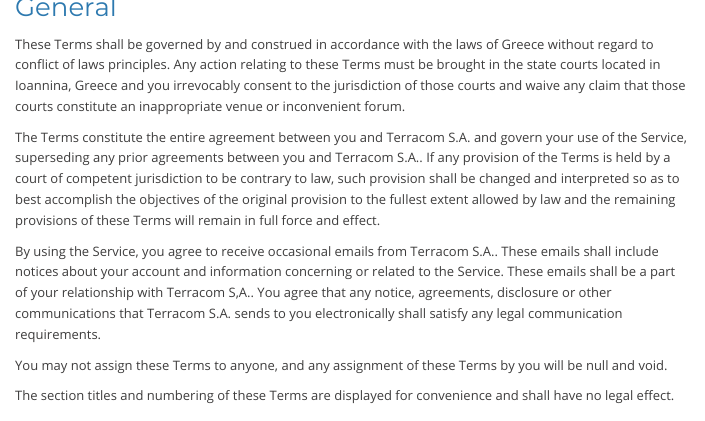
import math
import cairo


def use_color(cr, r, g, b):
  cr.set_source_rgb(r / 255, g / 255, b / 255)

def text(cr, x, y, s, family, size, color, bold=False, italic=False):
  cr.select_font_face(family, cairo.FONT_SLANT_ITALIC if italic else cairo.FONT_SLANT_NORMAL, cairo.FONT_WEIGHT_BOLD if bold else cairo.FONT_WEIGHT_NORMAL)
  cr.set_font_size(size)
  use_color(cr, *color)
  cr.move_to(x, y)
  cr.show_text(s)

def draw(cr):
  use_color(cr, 255, 255, 255)
  cr.paint()
  text(cr, 15, 16, "General", "Montserrat", 26, (45, 121, 175))
  text(cr, 15, 49, "These Terms shall be governed by and construed in accordance with the laws of Greece without regard to", "Open Sans", 13, (61, 60, 60))
  text(cr, 15, 69, "conflict of laws principles. Any action relating to these Terms must be brought in the state courts located in", "Open Sans", 13, (61, 60, 60))
  text(cr, 15, 90, "Ioannina, Greece and you irrevocably consent to the jurisdiction of those courts and waive any claim that those", "Open Sans", 13, (61, 60, 60))
  text(cr, 15, 111, "courts constitute an inappropriate venue or inconvenient forum.", "Open Sans", 13, (61, 60, 60))
  text(cr, 15, 142, "The Terms constitute the entire agreement between you and Terracom S.A. and govern your use of the Service,", "Open Sans", 13, (61, 60, 60))
  text(cr, 15, 162, "superseding any prior agreements between you and Terracom S.A.. If any provision of the Terms is held by a", "Open Sans", 13, (61, 60, 60))
  text(cr, 15, 183, "court of competent jurisdiction to be contrary to law, such provision shall be changed and interpreted so as to", "Open Sans", 13, (61, 60, 60))
  text(cr, 15, 204, "best accomplish the objectives of the original provision to the fullest extent allowed by law and the remaining", "Open Sans", 13, (61, 60, 60))
  text(cr, 15, 225, "provisions of these Terms will remain in full force and effect.", "Open Sans", 13, (61, 60, 60))
  text(cr, 15, 256, "By using the Service, you agree to receive occasional emails from Terracom S.A.. These emails shall include", "Open Sans", 13, (61, 60, 60))
  text(cr, 15, 276, "notices about your account and information concerning or related to the Service. These emails shall be a part", "Open Sans", 13, (61, 60, 60))
  text(cr, 15, 297, "of your relationship with Terracom S,A.. You agree that any notice, agreements, disclosure or other", "Open Sans", 13, (61, 60, 60))
  text(cr, 15, 318, "communications that Terracom S.A. sends to you electronically shall satisfy any legal communication", "Open Sans", 13, (61, 60, 60))
  text(cr, 15, 339, "requirements.", "Open Sans", 13, (61, 60, 60))
  text(cr, 15, 370, "You may not assign these Terms to anyone, and any assignment of these Terms by you will be null and void.", "Open Sans", 13, (61, 60, 60))
  text(cr, 15, 400, "The section titles and numbering of these Terms are displayed for convenience and shall have no legal effect.", "Open Sans", 13, (61, 60, 60))


surface = cairo.ImageSurface(cairo.FORMAT_RGB24, 705, 421)
cr = cairo.Context(surface)
options = cairo.FontOptions()
options.set_hint_metrics(cairo.HINT_METRICS_OFF)
options.set_hint_style(cairo.HINT_STYLE_NONE)
cr.set_font_options(options)
cr.set_miter_limit(4)
draw(cr)
surface.write_to_png("out.png")
